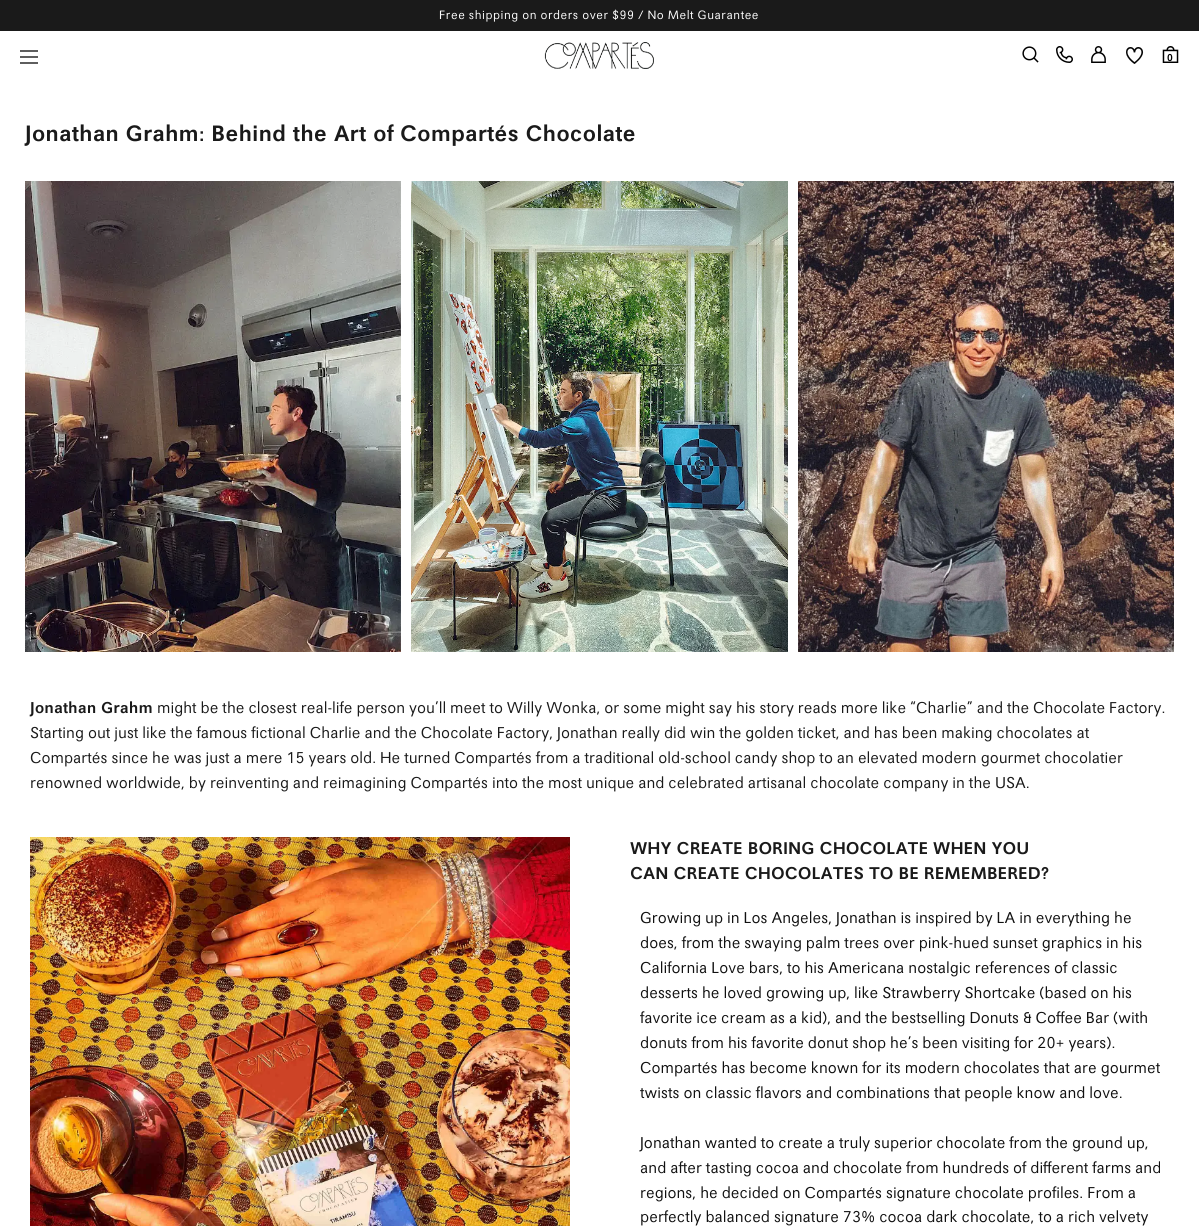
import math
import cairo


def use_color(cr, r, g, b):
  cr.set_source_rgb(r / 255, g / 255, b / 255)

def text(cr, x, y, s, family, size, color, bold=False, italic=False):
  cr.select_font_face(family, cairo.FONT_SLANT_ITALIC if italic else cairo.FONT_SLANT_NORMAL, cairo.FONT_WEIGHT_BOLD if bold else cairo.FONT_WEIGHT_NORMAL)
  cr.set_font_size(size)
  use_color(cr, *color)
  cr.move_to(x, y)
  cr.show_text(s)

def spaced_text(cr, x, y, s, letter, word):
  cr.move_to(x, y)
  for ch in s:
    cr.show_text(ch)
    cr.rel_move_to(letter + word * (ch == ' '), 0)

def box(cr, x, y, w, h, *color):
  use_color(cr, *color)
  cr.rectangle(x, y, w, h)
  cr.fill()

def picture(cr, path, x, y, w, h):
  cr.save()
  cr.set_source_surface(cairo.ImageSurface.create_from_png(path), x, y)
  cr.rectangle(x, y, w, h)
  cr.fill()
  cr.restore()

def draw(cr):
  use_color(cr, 255, 255, 255)
  cr.paint()
  box(cr, 0, 0, 1199, 31, 26, 26, 26)
  cr.new_path()
  cr.move_to(20, 51)
  cr.line_to(38, 51)
  cr.move_to(20, 63)
  cr.line_to(38, 63)
  cr.close_path()
  cr.move_to(20, 57)
  cr.line_to(38, 57)
  cr.close_path()
  cr.set_line_width(1.4)
  cr.stroke()
  picture(cr, "img_01.png", 544, 42, 110, 27)
  picture(cr, "img_02.png", 1022, 46, 17, 17)
  picture(cr, "img_03.png", 1056, 46, 17, 17)
  picture(cr, "img_04.png", 1091, 46, 15, 17)
  picture(cr, "img_05.png", 1126, 47, 18, 17)
  picture(cr, "img_06.png", 1162, 46, 17, 17)
  picture(cr, "img_07.png", 25, 181, 376, 471)
  picture(cr, "img_08.png", 411, 181, 377, 471)
  picture(cr, "img_09.png", 798, 181, 376, 471)
  picture(cr, "img_10.png", 30, 837, 540, 389)
  cr.select_font_face("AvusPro")
  cr.set_font_size(12)
  use_color(cr, 255, 255, 255)
  spaced_text(cr, 439, 19, "Free shipping on orders over $99 / No Melt Guarantee", 0.5, 0)
  text(cr, 1167, 61, "0", "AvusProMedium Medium", 10, (0, 0, 0))
  text(cr, 25, 141, "Jonathan Grahm: Behind the Art of Compartés Chocolate", "AvusProMedium Medium", 22.1, (26, 26, 26))
  text(cr, 30, 713, "Jonathan Grahm", "AvusProMedium Medium", 15.6, (26, 26, 26))
  text(cr, 157, 713, "might be the closest real-life person you’ll meet to Willy Wonka, or some might say his story reads more like “Charlie” and the Chocolate Factory.", "AvusPro", 15.6, (26, 26, 26))
  text(cr, 30, 738, "Starting out just like the famous fictional Charlie and the Chocolate Factory, Jonathan really did win the golden ticket, and has been making chocolates at", "AvusPro", 15.6, (26, 26, 26))
  text(cr, 30, 763, "Compartés since he was just a mere 15 years old. He turned Compartés from a traditional old-school candy shop to an elevated modern gourmet chocolatier", "AvusPro", 15.6, (26, 26, 26))
  text(cr, 30, 788, "renowned worldwide, by reinventing and reimagining Compartés into the most unique and celebrated artisanal chocolate company in the USA.", "AvusPro", 15.6, (26, 26, 26))
  text(cr, 630, 854, "WHY CREATE BORING CHOCOLATE WHEN YOU", "AvusProMedium Medium", 16.9, (26, 26, 26))
  text(cr, 630, 879, "CAN CREATE CHOCOLATES TO BE REMEMBERED?", "AvusProMedium Medium", 16.9, (26, 26, 26))
  text(cr, 640, 923, "Growing up in Los Angeles, Jonathan is inspired by LA in everything he", "AvusPro", 15.6, (17, 17, 17))
  text(cr, 640, 948, "does, from the swaying palm trees over pink-hued sunset graphics in his", "AvusPro", 15.6, (17, 17, 17))
  text(cr, 640, 973, "California Love bars, to his Americana nostalgic references of classic", "AvusPro", 15.6, (17, 17, 17))
  text(cr, 640, 998, "desserts he loved growing up, like Strawberry Shortcake (based on his", "AvusPro", 15.6, (17, 17, 17))
  text(cr, 640, 1023, "favorite ice cream as a kid), and the bestselling Donuts & Coffee Bar (with", "AvusPro", 15.6, (17, 17, 17))
  text(cr, 640, 1048, "donuts from his favorite donut shop he’s been visiting for 20+ years).", "AvusPro", 15.6, (17, 17, 17))
  text(cr, 640, 1073, "Compartés has become known for its modern chocolates that are gourmet", "AvusPro", 15.6, (17, 17, 17))
  text(cr, 640, 1098, "twists on classic flavors and combinations that people know and love.", "AvusPro", 15.6, (17, 17, 17))
  text(cr, 640, 1148, "Jonathan wanted to create a truly superior chocolate from the ground up,", "AvusPro", 15.6, (17, 17, 17))
  text(cr, 640, 1173, "and after tasting cocoa and chocolate from hundreds of different farms and", "AvusPro", 15.6, (17, 17, 17))
  text(cr, 640, 1198, "regions, he decided on Compartés signature chocolate profiles. From a", "AvusPro", 15.6, (17, 17, 17))
  text(cr, 640, 1222, "perfectly balanced signature 73% cocoa dark chocolate, to a rich velvety", "AvusPro", 15.6, (17, 17, 17))


surface = cairo.ImageSurface(cairo.FORMAT_RGB24, 1199, 1226)
cr = cairo.Context(surface)
options = cairo.FontOptions()
options.set_hint_metrics(cairo.HINT_METRICS_OFF)
options.set_hint_style(cairo.HINT_STYLE_NONE)
cr.set_font_options(options)
cr.set_miter_limit(4)
draw(cr)
surface.write_to_png("out.png")
